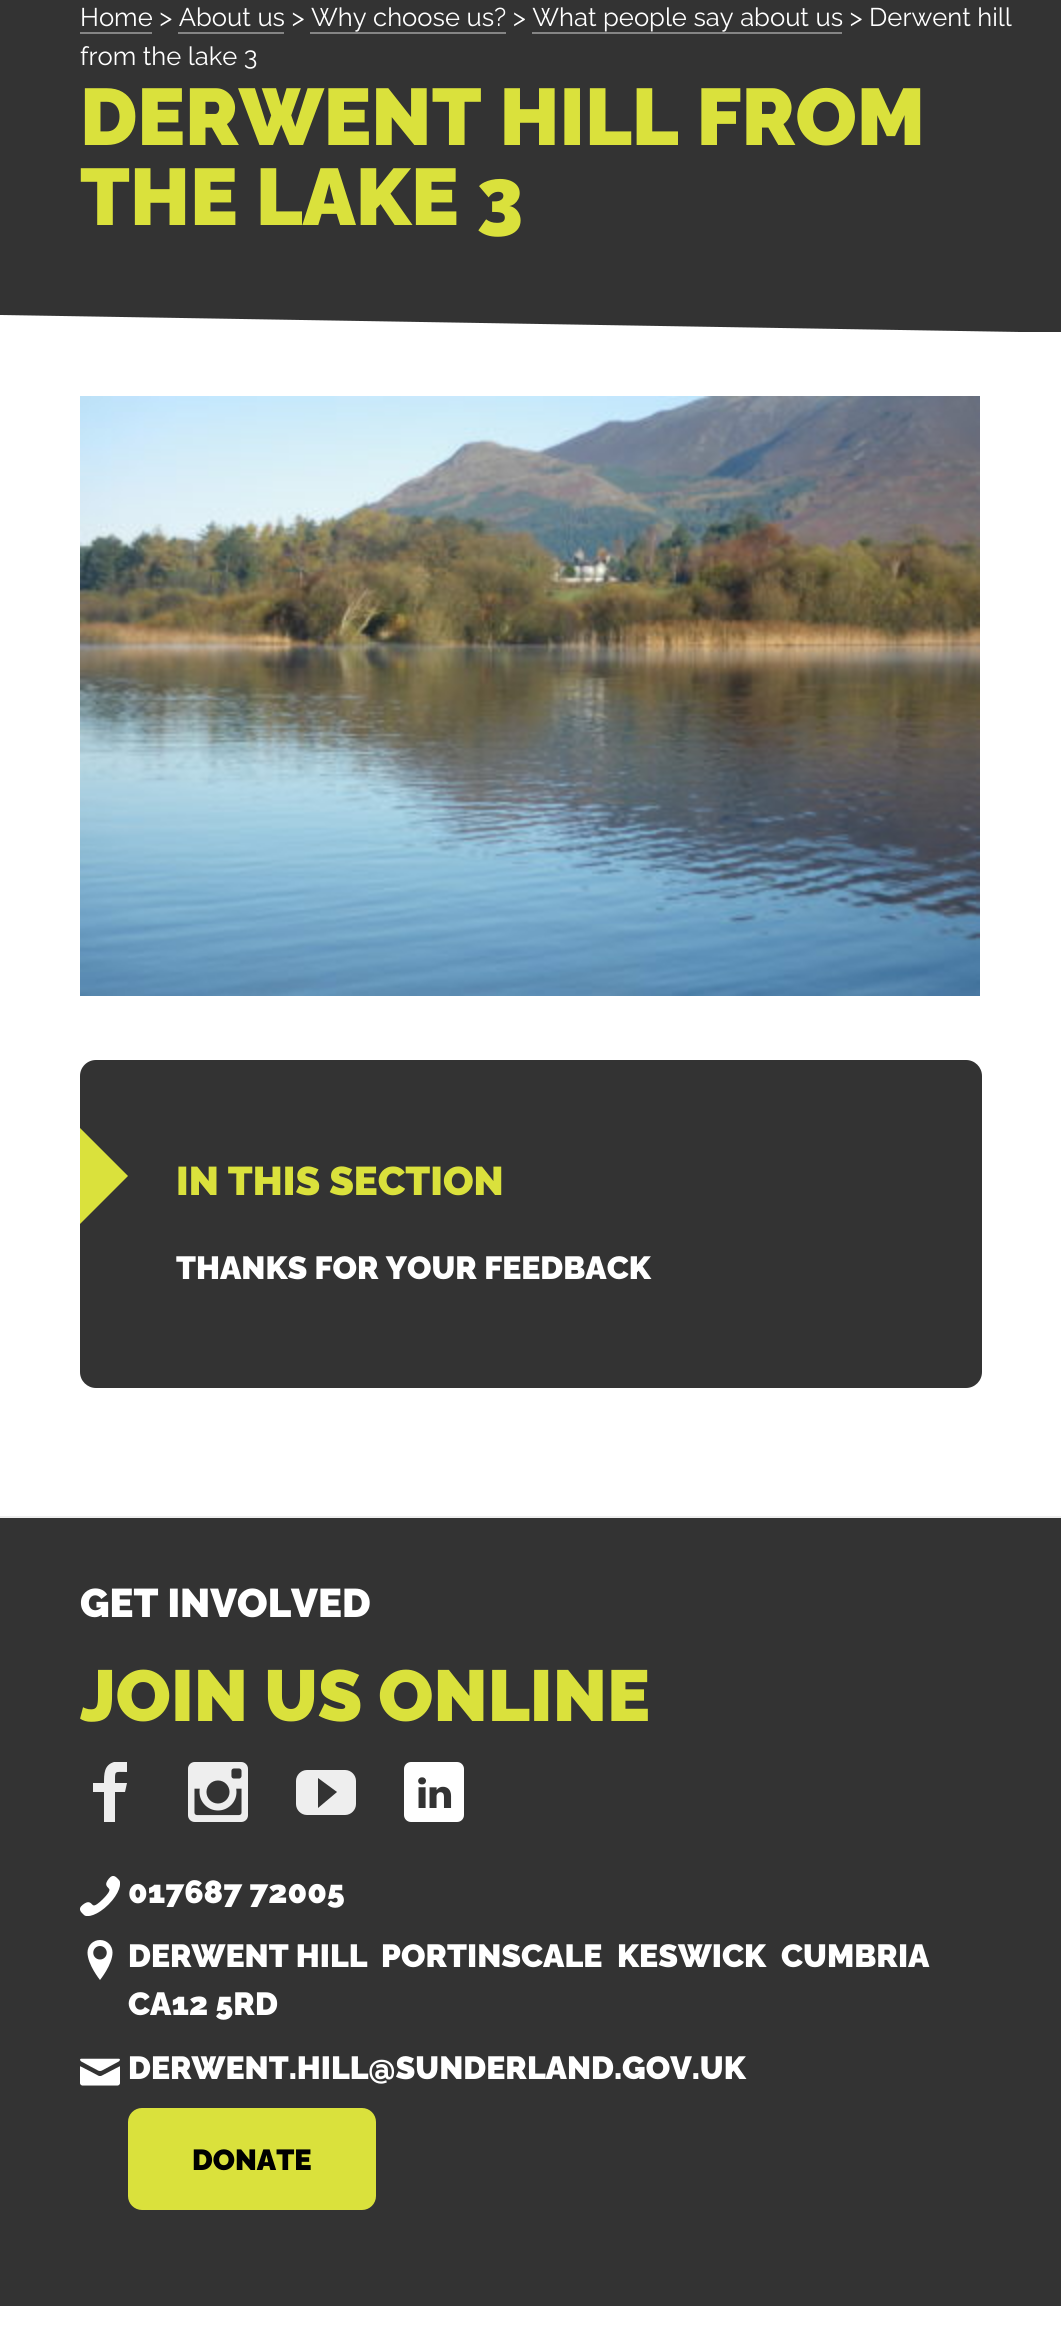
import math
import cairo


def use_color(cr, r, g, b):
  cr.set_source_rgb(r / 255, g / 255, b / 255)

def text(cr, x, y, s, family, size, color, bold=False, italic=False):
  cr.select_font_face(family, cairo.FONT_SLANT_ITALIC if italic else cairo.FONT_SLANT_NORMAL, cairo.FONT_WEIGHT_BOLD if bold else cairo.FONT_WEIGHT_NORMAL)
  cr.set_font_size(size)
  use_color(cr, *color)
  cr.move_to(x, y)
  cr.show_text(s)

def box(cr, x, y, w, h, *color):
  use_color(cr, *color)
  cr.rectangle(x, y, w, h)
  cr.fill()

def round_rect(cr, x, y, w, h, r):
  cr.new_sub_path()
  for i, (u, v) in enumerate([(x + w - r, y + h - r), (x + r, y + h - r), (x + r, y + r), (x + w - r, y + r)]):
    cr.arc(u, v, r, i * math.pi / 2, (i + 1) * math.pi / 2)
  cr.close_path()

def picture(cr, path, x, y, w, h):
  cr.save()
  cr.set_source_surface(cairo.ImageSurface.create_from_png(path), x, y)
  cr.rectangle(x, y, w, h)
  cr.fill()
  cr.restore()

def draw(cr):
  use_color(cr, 255, 255, 255)
  cr.paint()
  use_color(cr, 51, 51, 51)
  cr.new_path()
  cr.move_to(0, -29)
  cr.line_to(0, 315)
  cr.line_to(1018, 332)
  cr.line_to(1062, 332)
  cr.line_to(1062, -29)
  cr.close_path()
  cr.fill()
  box(cr, 80, 32, 72, 2, 133, 133, 133)
  box(cr, 178, 32, 106, 2, 133, 133, 133)
  box(cr, 310, 32, 196, 2, 133, 133, 133)
  box(cr, 532, 32, 310, 2, 133, 133, 133)
  picture(cr, "img_01.png", 80, 396, 900, 600)
  use_color(cr, 51, 51, 51)
  round_rect(cr, 80, 1060, 902, 328, 16)
  cr.fill()
  use_color(cr, 218, 225, 60)
  cr.new_path()
  cr.move_to(80, 1224)
  cr.line_to(128, 1176)
  cr.line_to(80, 1128)
  cr.close_path()
  cr.fill()
  box(cr, 0, 1518, 1061, 788, 51, 51, 51)
  box(cr, 0, 1516, 1061, 2, 238, 238, 238)
  cr.new_path()
  cr.move_to(127, 1772)
  cr.curve_to(114, 1772, 115, 1770, 115, 1783)
  cr.line_to(127, 1783)
  cr.line_to(125, 1792)
  cr.line_to(115, 1792)
  cr.line_to(115, 1822)
  cr.line_to(104, 1822)
  cr.line_to(104, 1792)
  cr.line_to(93, 1792)
  cr.line_to(93, 1783)
  cr.line_to(104, 1783)
  cr.curve_to(104, 1774, 104, 1765, 114, 1762)
  cr.line_to(127, 1762)
  cr.close_path()
  cr.fill()
  picture(cr, "img_02.png", 188, 1762, 60, 60)
  cr.new_path()
  cr.move_to(345, 1770)
  cr.line_to(307, 1770)
  cr.curve_to(301, 1770, 296, 1775, 296, 1781)
  cr.line_to(296, 1804)
  cr.curve_to(296, 1810, 301, 1815, 307, 1815)
  cr.line_to(345, 1815)
  cr.curve_to(351, 1815, 356, 1810, 356, 1804)
  cr.line_to(356, 1781)
  cr.curve_to(356, 1775, 351, 1770, 345, 1770)
  cr.close_path()
  cr.move_to(318, 1808)
  cr.line_to(318, 1778)
  cr.line_to(337, 1792)
  cr.close_path()
  cr.fill()
  picture(cr, "img_03.png", 404, 1762, 60, 60)
  picture(cr, "img_04.png", 80, 1876, 40, 40)
  picture(cr, "img_05.png", 87, 1940, 26, 40)
  picture(cr, "img_06.png", 80, 2058, 40, 28)
  use_color(cr, 218, 225, 60)
  round_rect(cr, 128, 2108, 248, 102, 14)
  cr.fill()
  text(cr, 80, 26, "Home > About us > Why choose us? > What people say about us > Derwent hill", "Raleway Thin", 25.6, (255, 255, 255))
  text(cr, 80, 65, "from the lake 3", "Raleway Thin", 25.6, (255, 255, 255))
  text(cr, 80, 145, "DERWENT HILL FROM", "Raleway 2 Thin", 80, (218, 225, 60))
  text(cr, 80, 225, "THE LAKE 3", "Raleway 2 Thin", 80, (218, 225, 60))
  text(cr, 176, 1195, "IN THIS SECTION", "Raleway 2 Thin", 40, (218, 225, 60))
  text(cr, 176, 1279, "THANKS FOR YOUR FEEDBACK", "Raleway 2 Thin", 32, (255, 255, 255))
  text(cr, 80, 1617, "GET INVOLVED", "Raleway 2 Thin", 40, (255, 255, 255))
  text(cr, 80, 1721, "JOIN US ONLINE", "Raleway 2 Thin", 72, (218, 225, 60))
  text(cr, 128, 1903, "017687 72005", "Raleway 2 Thin", 32, (255, 255, 255))
  text(cr, 128, 1967, "DERWENT HILL", "Raleway 2 Thin", 32, (255, 255, 255))
  text(cr, 381, 1967, "PORTINSCALE", "Raleway 2 Thin", 32, (255, 255, 255))
  text(cr, 617, 1967, "KESWICK", "Raleway 2 Thin", 32, (255, 255, 255))
  text(cr, 781, 1967, "CUMBRIA", "Raleway 2 Thin", 32, (255, 255, 255))
  text(cr, 128, 2015, "CA12 5RD", "Raleway 2 Thin", 32, (255, 255, 255))
  text(cr, 128, 2079, "DERWENT.HILL@SUNDERLAND.GOV.UK", "Raleway 2 Thin", 32, (255, 255, 255))
  text(cr, 192, 2170, "DONATE", "Raleway 2 Thin", 29, (0, 0, 0))


surface = cairo.ImageSurface(cairo.FORMAT_RGB24, 1061, 2339)
cr = cairo.Context(surface)
options = cairo.FontOptions()
options.set_hint_metrics(cairo.HINT_METRICS_OFF)
options.set_hint_style(cairo.HINT_STYLE_NONE)
cr.set_font_options(options)
cr.set_miter_limit(4)
draw(cr)
surface.write_to_png("out.png")
